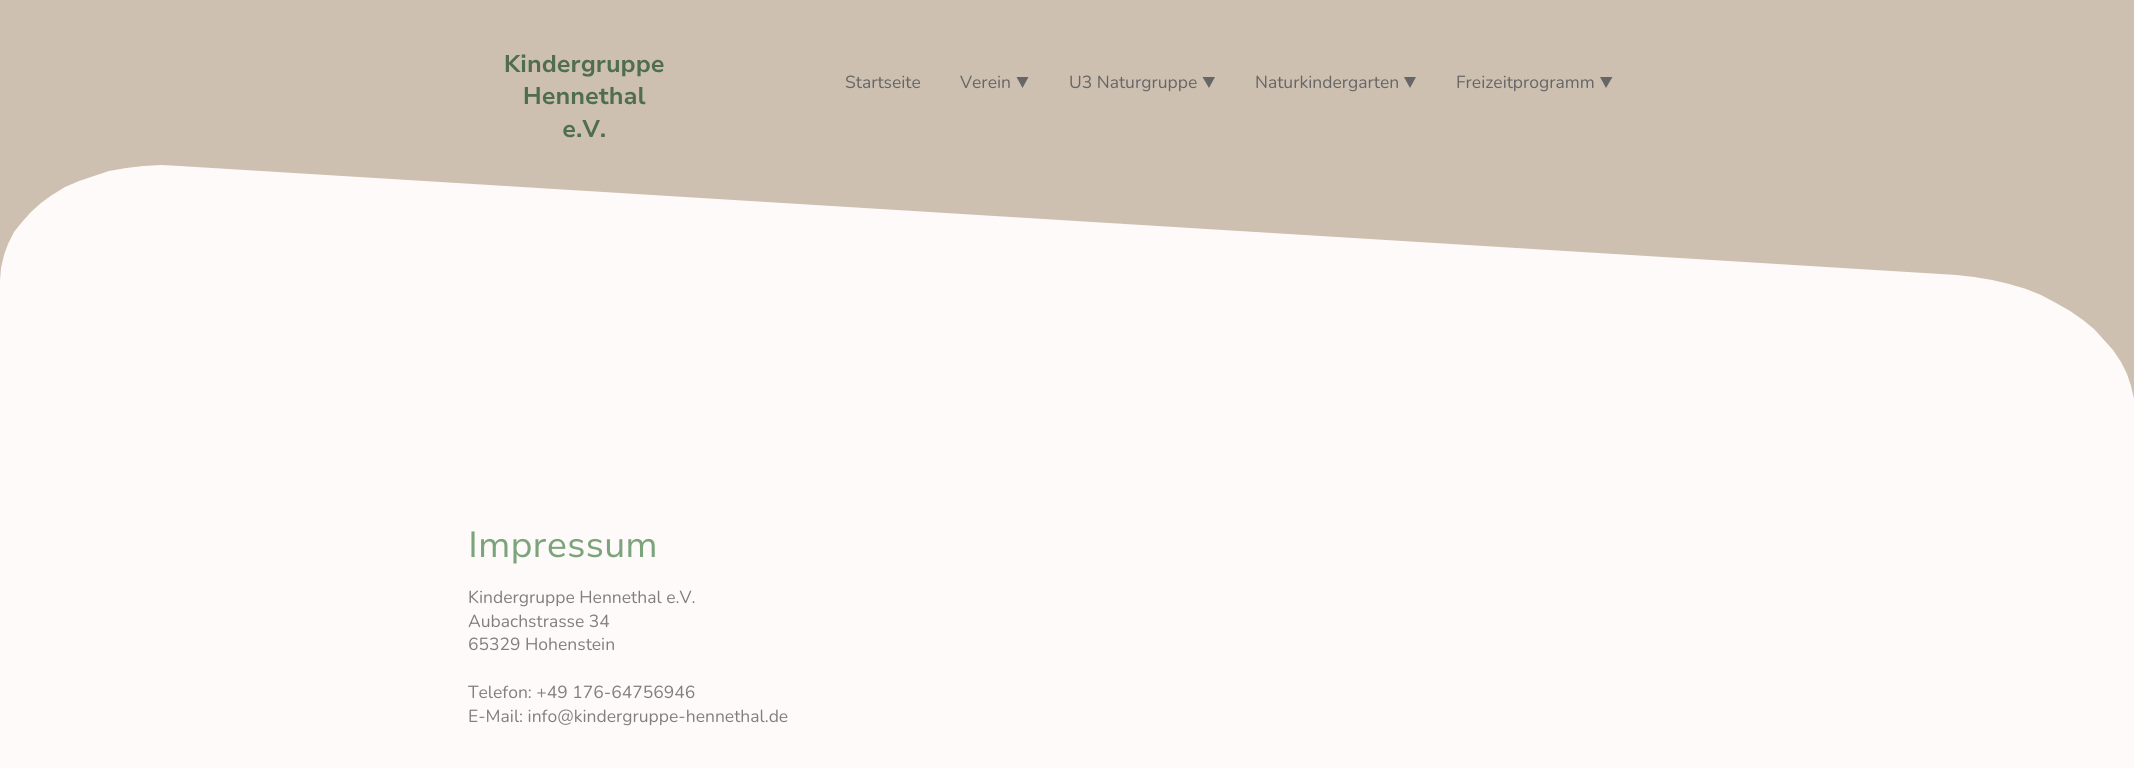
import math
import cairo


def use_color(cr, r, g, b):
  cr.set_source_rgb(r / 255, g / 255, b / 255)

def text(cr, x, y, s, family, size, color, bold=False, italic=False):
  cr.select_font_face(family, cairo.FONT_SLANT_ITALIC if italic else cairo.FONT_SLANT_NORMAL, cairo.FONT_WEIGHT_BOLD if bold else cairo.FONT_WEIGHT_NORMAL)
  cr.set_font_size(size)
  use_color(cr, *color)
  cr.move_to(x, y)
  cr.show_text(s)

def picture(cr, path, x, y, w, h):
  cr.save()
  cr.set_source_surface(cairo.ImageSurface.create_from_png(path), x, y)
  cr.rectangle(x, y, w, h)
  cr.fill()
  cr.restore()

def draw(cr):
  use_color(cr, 205, 192, 176)
  cr.paint()
  picture(cr, "img_01.png", 505, 54, 159, 84)
  use_color(cr, 102, 102, 102)
  cr.new_path()
  cr.move_to(1028.5, 77)
  cr.line_to(1022.5, 88)
  cr.line_to(1016.5, 77)
  cr.close_path()
  cr.fill()
  cr.new_path()
  cr.move_to(1215, 77)
  cr.line_to(1209, 88)
  cr.line_to(1202.5, 77)
  cr.close_path()
  cr.fill()
  cr.new_path()
  cr.move_to(1416, 77)
  cr.line_to(1410, 88)
  cr.line_to(1404, 77)
  cr.close_path()
  cr.fill()
  cr.new_path()
  cr.move_to(1612.5, 77)
  cr.line_to(1606, 88)
  cr.line_to(1600, 77)
  cr.close_path()
  cr.fill()
  use_color(cr, 255, 250, 250)
  cr.new_path()
  cr.move_to(0, 281)
  cr.line_to(0, 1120)
  cr.line_to(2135, 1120)
  cr.line_to(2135, 412)
  cr.line_to(2134, 399)
  cr.line_to(2131, 386)
  cr.line_to(2127, 374)
  cr.line_to(2121, 362)
  cr.line_to(2113, 350)
  cr.line_to(2104, 340)
  cr.line_to(2094, 329)
  cr.line_to(2083, 320)
  cr.line_to(2070, 311)
  cr.line_to(2056, 303)
  cr.line_to(2041, 295)
  cr.line_to(2026, 289)
  cr.line_to(2009, 284)
  cr.line_to(1992, 280)
  cr.line_to(1974, 277)
  cr.line_to(1956, 275)
  cr.line_to(179, 166)
  cr.line_to(161, 165)
  cr.line_to(143, 166)
  cr.line_to(126, 168)
  cr.line_to(109, 171)
  cr.line_to(94, 176)
  cr.line_to(79, 181)
  cr.line_to(65, 187)
  cr.line_to(52, 195)
  cr.line_to(41, 203)
  cr.line_to(31, 212)
  cr.line_to(22, 222)
  cr.line_to(14, 232)
  cr.line_to(8, 244)
  cr.line_to(4, 255)
  cr.line_to(1, 268)
  cr.close_path()
  cr.fill()
  text(cr, 845, 88, "Startseite", "Nunito", 17.5, (102, 102, 102))
  text(cr, 960, 88, "Verein", "Nunito", 17.5, (102, 102, 102))
  text(cr, 1069, 88, "U3 Naturgruppe", "Nunito", 17.5, (102, 102, 102))
  text(cr, 1255, 88, "Naturkindergarten", "Nunito", 17.5, (102, 102, 102))
  text(cr, 1456, 88, "Freizeitprogramm", "Nunito", 17.5, (102, 102, 102))
  text(cr, 468, 557, "Impressum", "Nunito Sans", 36.25, (124, 164, 124))
  text(cr, 468, 603, "Kindergruppe Hennethal e.V.", "Nunito", 17.5, (127, 127, 127))
  text(cr, 468, 627, "Aubachstrasse 34", "Nunito", 17.5, (127, 127, 127))
  text(cr, 468, 650, "65329 Hohenstein", "Nunito", 17.5, (127, 127, 127))
  text(cr, 468, 698, "Telefon: +49 176-64756946", "Nunito", 17.5, (127, 127, 127))
  text(cr, 468, 722, "E-Mail: info@kindergruppe-hennethal.de", "Nunito", 17.5, (127, 127, 127))


surface = cairo.ImageSurface(cairo.FORMAT_RGB24, 2134, 768)
cr = cairo.Context(surface)
options = cairo.FontOptions()
options.set_hint_metrics(cairo.HINT_METRICS_OFF)
options.set_hint_style(cairo.HINT_STYLE_NONE)
cr.set_font_options(options)
cr.set_miter_limit(4)
draw(cr)
surface.write_to_png("out.png")
